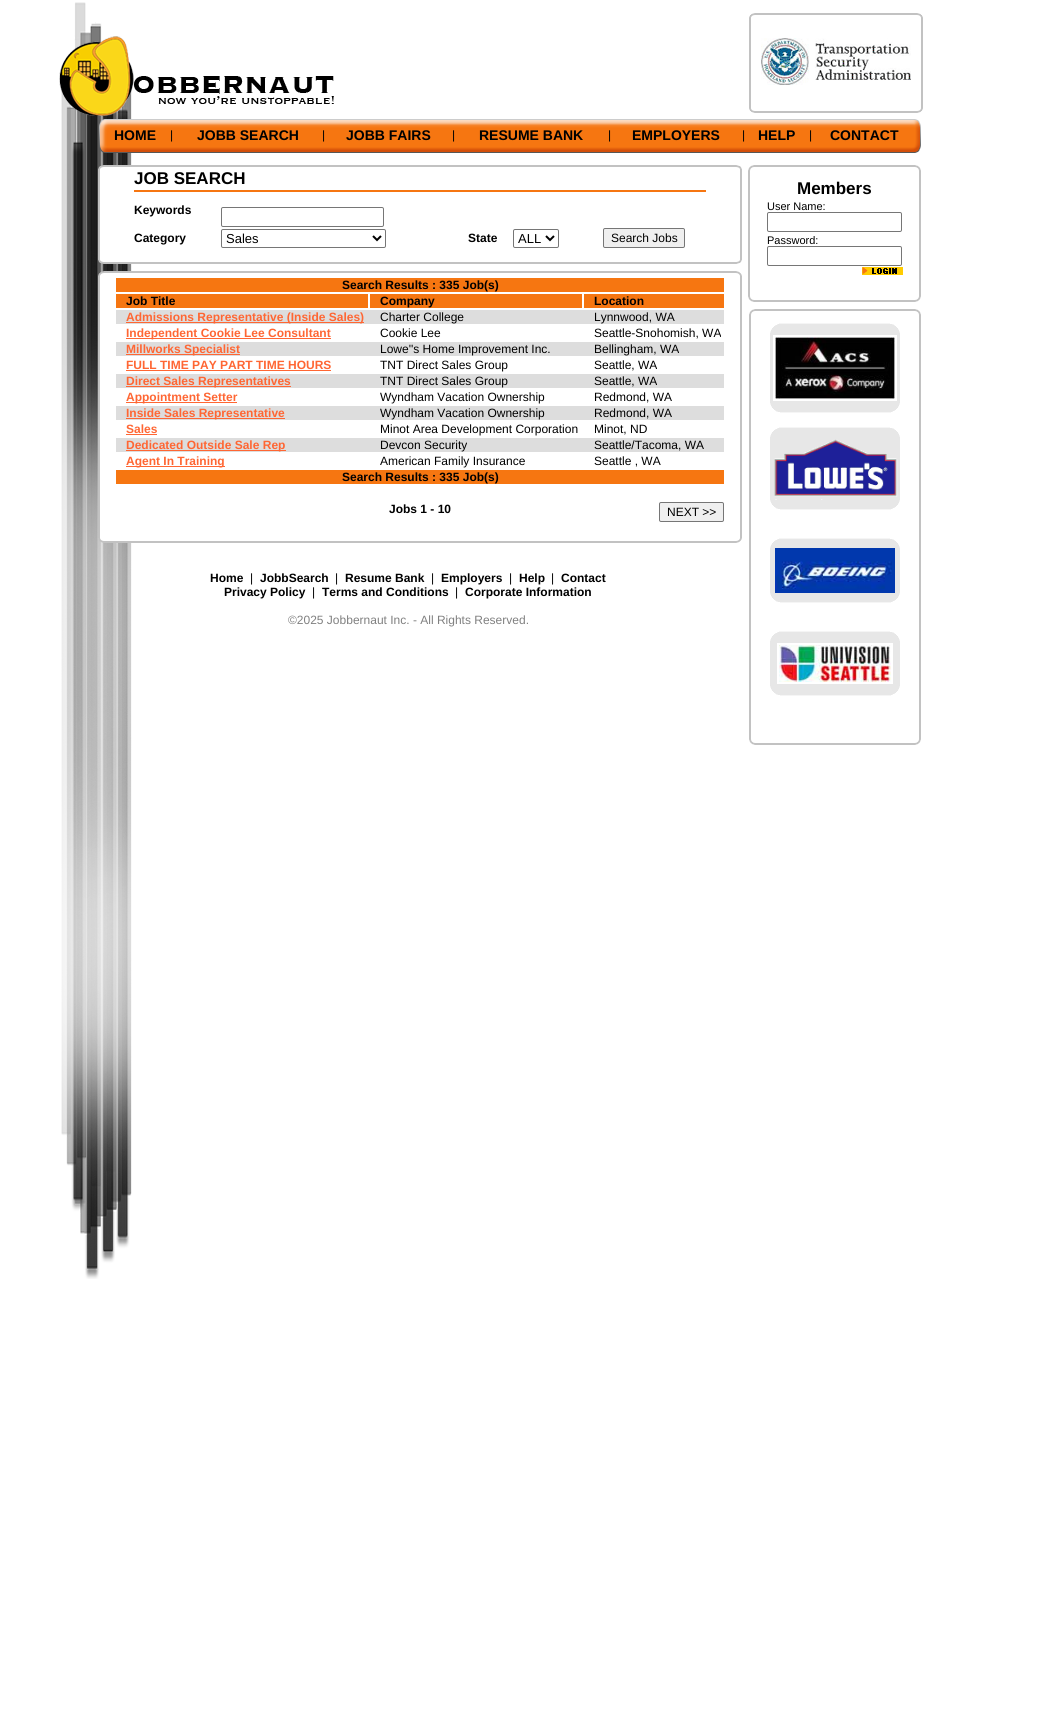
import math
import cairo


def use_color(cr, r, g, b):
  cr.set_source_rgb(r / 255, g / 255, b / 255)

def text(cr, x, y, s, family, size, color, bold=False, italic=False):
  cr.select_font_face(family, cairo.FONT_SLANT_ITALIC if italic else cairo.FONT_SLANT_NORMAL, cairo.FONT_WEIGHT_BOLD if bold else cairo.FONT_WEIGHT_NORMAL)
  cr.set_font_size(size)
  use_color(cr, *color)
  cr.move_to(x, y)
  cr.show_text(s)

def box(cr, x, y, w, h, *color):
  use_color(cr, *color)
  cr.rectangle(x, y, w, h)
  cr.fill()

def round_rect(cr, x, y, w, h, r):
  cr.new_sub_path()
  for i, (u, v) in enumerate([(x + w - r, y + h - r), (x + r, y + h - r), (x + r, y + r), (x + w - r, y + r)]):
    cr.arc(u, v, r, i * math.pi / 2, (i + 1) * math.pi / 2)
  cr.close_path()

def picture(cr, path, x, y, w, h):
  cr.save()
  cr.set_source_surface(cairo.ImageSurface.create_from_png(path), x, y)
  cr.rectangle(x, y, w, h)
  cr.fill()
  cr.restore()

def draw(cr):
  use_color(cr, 255, 255, 255)
  cr.paint()
  picture(cr, "img_01.png", 61, 2, 71, 1277)
  picture(cr, "img_02.png", 749, 13, 174, 100)
  picture(cr, "img_03.png", 59, 36, 275, 80)
  picture(cr, "img_04.png", 761, 38, 150, 47)
  picture(cr, "img_05.png", 99, 119, 822, 34)
  picture(cr, "img_06.png", 98, 165, 644, 99)
  picture(cr, "img_07.png", 748, 165, 173, 137)
  box(cr, 134, 190, 572, 2, 246, 118, 17)
  round_rect(cr, 221.5, 207.5, 162, 19, 1.5)
  use_color(cr, 118, 118, 118)
  cr.set_line_width(1)
  cr.stroke()
  round_rect(cr, 221.5, 229.5, 164, 18, 1.5)
  cr.stroke()
  cr.new_path()
  cr.move_to(373, 236)
  cr.line_to(377, 240)
  cr.line_to(381, 236)
  use_color(cr, 0, 0, 0)
  cr.set_line_width(2)
  cr.stroke()
  round_rect(cr, 513.5, 229.5, 45, 18, 1.5)
  use_color(cr, 118, 118, 118)
  cr.set_line_width(1)
  cr.stroke()
  cr.new_path()
  cr.move_to(546, 236)
  cr.line_to(550, 240)
  cr.line_to(554, 236)
  use_color(cr, 0, 0, 0)
  cr.set_line_width(2)
  cr.stroke()
  use_color(cr, 239, 239, 239)
  round_rect(cr, 603.5, 228.5, 81, 19, 1.5)
  cr.fill_preserve()
  use_color(cr, 118, 118, 118)
  cr.set_line_width(1)
  cr.stroke()
  round_rect(cr, 767.5, 212.5, 134, 19, 1.5)
  cr.stroke()
  round_rect(cr, 767.5, 246.5, 134, 19, 1.5)
  cr.stroke()
  picture(cr, "img_08.png", 862, 267, 41, 8)
  picture(cr, "img_09.png", 98, 271, 644, 5)
  picture(cr, "img_10.png", 98, 276, 644, 262)
  box(cr, 116, 278, 608, 14, 246, 118, 17)
  box(cr, 116, 294, 252, 14, 246, 118, 17)
  box(cr, 370, 294, 212, 14, 246, 118, 17)
  box(cr, 584, 294, 140, 14, 246, 118, 17)
  box(cr, 116, 310, 608, 14, 221, 221, 221)
  box(cr, 126, 322, 238, 1, 255, 102, 51)
  box(cr, 126, 338, 205, 1, 255, 102, 51)
  box(cr, 116, 342, 608, 14, 221, 221, 221)
  box(cr, 126, 354, 114, 1, 255, 102, 51)
  box(cr, 126, 370, 205, 1, 255, 102, 51)
  box(cr, 116, 374, 608, 14, 221, 221, 221)
  box(cr, 126, 386, 165, 1, 255, 102, 51)
  box(cr, 126, 402, 111, 1, 255, 102, 51)
  box(cr, 116, 406, 608, 14, 221, 221, 221)
  box(cr, 126, 418, 159, 1, 255, 102, 51)
  box(cr, 126, 434, 31, 1, 255, 102, 51)
  box(cr, 116, 438, 608, 14, 221, 221, 221)
  box(cr, 126, 450, 160, 1, 255, 102, 51)
  box(cr, 126, 466, 99, 1, 255, 102, 51)
  box(cr, 116, 470, 608, 14, 246, 118, 17)
  use_color(cr, 239, 239, 239)
  round_rect(cr, 659.5, 502.5, 64, 19, 1.5)
  cr.fill_preserve()
  use_color(cr, 118, 118, 118)
  cr.stroke()
  picture(cr, "img_11.png", 99, 538, 643, 5)
  picture(cr, "img_12.png", 749, 309, 172, 436)
  picture(cr, "img_13.png", 770, 323, 130, 10)
  box(cr, 770, 333, 130, 70, 231, 231, 231)
  box(cr, 773, 335, 124, 66, 255, 255, 255)
  picture(cr, "img_14.png", 775, 337, 120, 62)
  picture(cr, "img_15.png", 770, 403, 130, 10)
  picture(cr, "img_13.png", 770, 427, 130, 10)
  box(cr, 770, 437, 130, 63, 231, 231, 231)
  picture(cr, "img_16.png", 774, 439, 124, 61)
  picture(cr, "img_15.png", 770, 500, 130, 10)
  picture(cr, "img_13.png", 770, 538, 130, 10)
  box(cr, 770, 548, 130, 45, 231, 231, 231)
  picture(cr, "img_17.png", 775, 548, 120, 45)
  picture(cr, "img_15.png", 770, 593, 130, 10)
  picture(cr, "img_13.png", 770, 631, 130, 10)
  box(cr, 770, 641, 130, 45, 231, 231, 231)
  box(cr, 777, 643, 116, 41, 255, 255, 255)
  picture(cr, "img_18.png", 779, 645, 112, 37)
  picture(cr, "img_15.png", 770, 686, 130, 10)
  text(cr, 114, 140, "HOME", "Liberation Sans", 14, (0, 0, 0), bold=True)
  text(cr, 170, 139, "|", "Liberation Sans", 12, (0, 0, 0))
  text(cr, 197, 140, "JOBB SEARCH", "Liberation Sans", 14, (0, 0, 0), bold=True)
  text(cr, 322, 139, "|", "Liberation Sans", 12, (0, 0, 0))
  text(cr, 346, 140, "JOBB FAIRS", "Liberation Sans", 14, (0, 0, 0), bold=True)
  text(cr, 452, 139, "|", "Liberation Sans", 12, (0, 0, 0))
  text(cr, 479, 140, "RESUME BANK", "Liberation Sans", 14, (0, 0, 0), bold=True)
  text(cr, 608, 139, "|", "Liberation Sans", 12, (0, 0, 0))
  text(cr, 632, 140, "EMPLOYERS", "Liberation Sans", 14, (0, 0, 0), bold=True)
  text(cr, 742, 139, "|", "Liberation Sans", 12, (0, 0, 0))
  text(cr, 758, 140, "HELP", "Liberation Sans", 14, (0, 0, 0), bold=True)
  text(cr, 809, 139, "|", "Liberation Sans", 12, (0, 0, 0))
  text(cr, 830, 140, "CONTACT", "Liberation Sans", 14, (0, 0, 0), bold=True)
  text(cr, 134, 184, "JOB SEARCH", "Liberation Sans", 17, (0, 0, 0), bold=True)
  text(cr, 134, 214, "Keywords", "Liberation Sans", 12, (0, 0, 0), bold=True)
  text(cr, 134, 242, "Category", "Liberation Sans", 12, (0, 0, 0), bold=True)
  text(cr, 226, 243, "Sales", "Liberation Sans", 13, (0, 0, 0))
  text(cr, 468, 242, "State", "Liberation Sans", 12, (0, 0, 0), bold=True)
  text(cr, 518, 243, "ALL", "Liberation Sans", 13, (0, 0, 0))
  text(cr, 611, 242, "Search Jobs", "Liberation Sans", 12, (0, 0, 0))
  text(cr, 797, 194, "Members", "Liberation Sans", 17, (0, 0, 0), bold=True)
  text(cr, 767, 210, "User Name:", "Liberation Sans", 11, (0, 0, 0))
  text(cr, 767, 244, "Password:", "Liberation Sans", 11, (0, 0, 0))
  text(cr, 342, 289, "Search Results : 335 Job(s)", "Liberation Sans", 12, (0, 0, 0), bold=True)
  text(cr, 126, 305, "Job Title", "Liberation Sans", 12, (0, 0, 0), bold=True)
  text(cr, 380, 305, "Company", "Liberation Sans", 12, (0, 0, 0), bold=True)
  text(cr, 594, 305, "Location", "Liberation Sans", 12, (0, 0, 0), bold=True)
  text(cr, 126, 321, "Admissions Representative (Inside Sales)", "Liberation Sans", 12, (255, 102, 51), bold=True)
  text(cr, 380, 321, "Charter College", "Liberation Sans", 12, (0, 0, 0))
  text(cr, 594, 321, "Lynnwood, WA", "Liberation Sans", 12, (0, 0, 0))
  text(cr, 126, 337, "Independent Cookie Lee Consultant", "Liberation Sans", 12, (255, 102, 51), bold=True)
  text(cr, 380, 337, "Cookie Lee", "Liberation Sans", 12, (0, 0, 0))
  text(cr, 594, 337, "Seattle-Snohomish, WA", "Liberation Sans", 12, (0, 0, 0))
  text(cr, 126, 353, "Millworks Specialist", "Liberation Sans", 12, (255, 102, 51), bold=True)
  text(cr, 380, 353, "Lowe''s Home Improvement Inc.", "Liberation Sans", 12, (0, 0, 0))
  text(cr, 594, 353, "Bellingham, WA", "Liberation Sans", 12, (0, 0, 0))
  text(cr, 126, 369, "FULL TIME PAY PART TIME HOURS", "Liberation Sans", 12, (255, 102, 51), bold=True)
  text(cr, 380, 369, "TNT Direct Sales Group", "Liberation Sans", 12, (0, 0, 0))
  text(cr, 594, 369, "Seattle, WA", "Liberation Sans", 12, (0, 0, 0))
  text(cr, 126, 385, "Direct Sales Representatives", "Liberation Sans", 12, (255, 102, 51), bold=True)
  text(cr, 380, 385, "TNT Direct Sales Group", "Liberation Sans", 12, (0, 0, 0))
  text(cr, 594, 385, "Seattle, WA", "Liberation Sans", 12, (0, 0, 0))
  text(cr, 126, 401, "Appointment Setter", "Liberation Sans", 12, (255, 102, 51), bold=True)
  text(cr, 380, 401, "Wyndham Vacation Ownership", "Liberation Sans", 12, (0, 0, 0))
  text(cr, 594, 401, "Redmond, WA", "Liberation Sans", 12, (0, 0, 0))
  text(cr, 126, 417, "Inside Sales Representative", "Liberation Sans", 12, (255, 102, 51), bold=True)
  text(cr, 380, 417, "Wyndham Vacation Ownership", "Liberation Sans", 12, (0, 0, 0))
  text(cr, 594, 417, "Redmond, WA", "Liberation Sans", 12, (0, 0, 0))
  text(cr, 126, 433, "Sales", "Liberation Sans", 12, (255, 102, 51), bold=True)
  text(cr, 380, 433, "Minot Area Development Corporation", "Liberation Sans", 12, (0, 0, 0))
  text(cr, 594, 433, "Minot, ND", "Liberation Sans", 12, (0, 0, 0))
  text(cr, 126, 449, "Dedicated Outside Sale Rep", "Liberation Sans", 12, (255, 102, 51), bold=True)
  text(cr, 380, 449, "Devcon Security", "Liberation Sans", 12, (0, 0, 0))
  text(cr, 594, 449, "Seattle/Tacoma, WA", "Liberation Sans", 12, (0, 0, 0))
  text(cr, 126, 465, "Agent In Training", "Liberation Sans", 12, (255, 102, 51), bold=True)
  text(cr, 380, 465, "American Family Insurance", "Liberation Sans", 12, (0, 0, 0))
  text(cr, 594, 465, "Seattle , WA", "Liberation Sans", 12, (0, 0, 0))
  text(cr, 342, 481, "Search Results : 335 Job(s)", "Liberation Sans", 12, (0, 0, 0), bold=True)
  text(cr, 389, 513, "Jobs 1 - 10", "Liberation Sans", 12, (0, 0, 0), bold=True)
  text(cr, 667, 516, "NEXT >>", "Liberation Sans", 12, (0, 0, 0))
  text(cr, 210, 582, "Home", "Liberation Sans", 12, (0, 0, 0), bold=True)
  text(cr, 250, 582, "|", "Liberation Sans", 12, (0, 0, 0))
  text(cr, 260, 582, "JobbSearch", "Liberation Sans", 12, (0, 0, 0), bold=True)
  text(cr, 335, 582, "|", "Liberation Sans", 12, (0, 0, 0))
  text(cr, 345, 582, "Resume Bank", "Liberation Sans", 12, (0, 0, 0), bold=True)
  text(cr, 431, 582, "|", "Liberation Sans", 12, (0, 0, 0))
  text(cr, 441, 582, "Employers", "Liberation Sans", 12, (0, 0, 0), bold=True)
  text(cr, 509, 582, "|", "Liberation Sans", 12, (0, 0, 0))
  text(cr, 519, 582, "Help", "Liberation Sans", 12, (0, 0, 0), bold=True)
  text(cr, 551, 582, "|", "Liberation Sans", 12, (0, 0, 0))
  text(cr, 561, 582, "Contact", "Liberation Sans", 12, (0, 0, 0), bold=True)
  text(cr, 224, 596, "Privacy Policy", "Liberation Sans", 12, (0, 0, 0), bold=True)
  text(cr, 312, 596, "|", "Liberation Sans", 12, (0, 0, 0))
  text(cr, 322, 596, "Terms and Conditions", "Liberation Sans", 12, (0, 0, 0), bold=True)
  text(cr, 455, 596, "|", "Liberation Sans", 12, (0, 0, 0))
  text(cr, 465, 596, "Corporate Information", "Liberation Sans", 12, (0, 0, 0), bold=True)
  text(cr, 288, 624, "©2025 Jobbernaut Inc. - All Rights Reserved.", "Liberation Sans", 12, (128, 128, 128))


surface = cairo.ImageSurface(cairo.FORMAT_RGB24, 1061, 1726)
cr = cairo.Context(surface)
options = cairo.FontOptions()
options.set_hint_metrics(cairo.HINT_METRICS_OFF)
options.set_hint_style(cairo.HINT_STYLE_NONE)
cr.set_font_options(options)
cr.set_miter_limit(4)
draw(cr)
surface.write_to_png("out.png")
